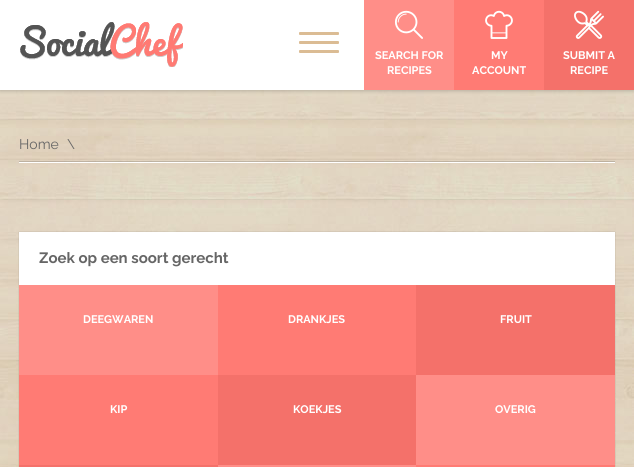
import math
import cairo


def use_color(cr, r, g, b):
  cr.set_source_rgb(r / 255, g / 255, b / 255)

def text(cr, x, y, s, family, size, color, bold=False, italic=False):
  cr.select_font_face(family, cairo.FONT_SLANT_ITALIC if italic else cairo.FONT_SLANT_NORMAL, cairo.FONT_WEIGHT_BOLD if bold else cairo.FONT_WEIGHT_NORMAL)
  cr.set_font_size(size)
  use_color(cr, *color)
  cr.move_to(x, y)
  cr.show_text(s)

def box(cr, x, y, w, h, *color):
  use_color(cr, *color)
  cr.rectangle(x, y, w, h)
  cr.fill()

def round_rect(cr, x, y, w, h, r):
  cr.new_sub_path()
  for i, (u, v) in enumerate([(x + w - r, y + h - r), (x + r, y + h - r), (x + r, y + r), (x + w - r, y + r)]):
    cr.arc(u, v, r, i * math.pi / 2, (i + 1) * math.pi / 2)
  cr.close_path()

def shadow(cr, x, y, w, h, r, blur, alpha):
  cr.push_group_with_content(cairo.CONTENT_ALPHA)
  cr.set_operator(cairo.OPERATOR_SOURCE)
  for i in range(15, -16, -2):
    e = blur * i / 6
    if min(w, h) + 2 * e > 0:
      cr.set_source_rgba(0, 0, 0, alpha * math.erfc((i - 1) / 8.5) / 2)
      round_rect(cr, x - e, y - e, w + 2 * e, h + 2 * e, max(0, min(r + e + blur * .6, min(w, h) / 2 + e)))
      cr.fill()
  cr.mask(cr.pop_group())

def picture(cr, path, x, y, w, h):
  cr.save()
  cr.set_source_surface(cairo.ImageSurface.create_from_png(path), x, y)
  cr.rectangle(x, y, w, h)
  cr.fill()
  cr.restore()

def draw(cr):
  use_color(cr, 255, 255, 255)
  cr.paint()
  picture(cr, "img_01.png", 0, 90, 634, 377)
  use_color(cr, 0, 0, 0)
  shadow(cr, 0, 1, 634, 90, 0, 2, 0.2)
  box(cr, 0, 0, 364, 90, 255, 255, 255)
  picture(cr, "img_02.png", 20, 22, 163, 45)
  use_color(cr, 219, 188, 148)
  round_rect(cr, 299, 32, 40, 3, 1)
  cr.fill()
  round_rect(cr, 299, 41, 40, 3, 1)
  cr.fill()
  round_rect(cr, 299, 50, 40, 3, 1)
  cr.fill()
  box(cr, 364, 0, 90, 90, 255, 142, 136)
  picture(cr, "img_03.png", 395, 10, 28, 29)
  box(cr, 454, 0, 90, 90, 255, 123, 116)
  picture(cr, "img_04.png", 485, 10, 28, 29)
  box(cr, 544, 0, 90, 90, 244, 113, 106)
  picture(cr, "img_05.png", 574, 10, 30, 29)
  box(cr, 19, 162, 596, 1, 255, 255, 255)
  cr.set_source_rgba(0, 0, 0, 0.15)
  cr.rectangle(19, 161, 596, 1)
  cr.fill()
  use_color(cr, 0, 0, 0)
  shadow(cr, 19, 232, 596, 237, 0, 0.5, 0.2)
  box(cr, 19, 232, 596, 53, 255, 255, 255)
  box(cr, 19, 285, 199, 90, 255, 142, 136)
  box(cr, 218, 285, 198, 90, 255, 123, 116)
  box(cr, 416, 285, 199, 90, 244, 113, 106)
  box(cr, 19, 375, 199, 90, 255, 123, 116)
  box(cr, 218, 375, 198, 90, 244, 113, 106)
  box(cr, 416, 375, 199, 90, 255, 142, 136)
  box(cr, 19, 465, 199, 2, 244, 113, 106)
  box(cr, 218, 465, 198, 2, 255, 142, 136)
  box(cr, 416, 465, 199, 2, 255, 123, 116)
  text(cr, 375, 59, "SEARCH FOR", "Raleway", 11, (255, 255, 255), bold=True)
  text(cr, 387, 74, "RECIPES", "Raleway", 11, (255, 255, 255), bold=True)
  text(cr, 491, 59, "MY", "Raleway", 11, (255, 255, 255), bold=True)
  text(cr, 472, 74, "ACCOUNT", "Raleway", 11, (255, 255, 255), bold=True)
  text(cr, 563, 59, "SUBMIT A", "Raleway", 11, (255, 255, 255), bold=True)
  text(cr, 570, 74, "RECIPE", "Raleway", 11, (255, 255, 255), bold=True)
  text(cr, 19, 149, "Home", "Raleway", 14, (102, 102, 102))
  text(cr, 67, 149, "\\", "Raleway", 14, (102, 102, 102))
  text(cr, 39, 263, "Zoek op een soort gerecht", "Raleway", 15, (102, 102, 102), bold=True)
  text(cr, 83, 323, "DEEGWAREN", "Raleway", 11, (255, 255, 255), bold=True)
  text(cr, 288, 323, "DRANKJES", "Raleway", 11, (255, 255, 255), bold=True)
  text(cr, 500, 323, "FRUIT", "Raleway", 11, (255, 255, 255), bold=True)
  text(cr, 110, 413, "KIP", "Raleway", 11, (255, 255, 255), bold=True)
  text(cr, 293, 413, "KOEKJES", "Raleway", 11, (255, 255, 255), bold=True)
  text(cr, 495, 413, "OVERIG", "Raleway", 11, (255, 255, 255), bold=True)


surface = cairo.ImageSurface(cairo.FORMAT_RGB24, 634, 467)
cr = cairo.Context(surface)
options = cairo.FontOptions()
options.set_hint_metrics(cairo.HINT_METRICS_OFF)
options.set_hint_style(cairo.HINT_STYLE_NONE)
cr.set_font_options(options)
cr.set_miter_limit(4)
draw(cr)
surface.write_to_png("out.png")
